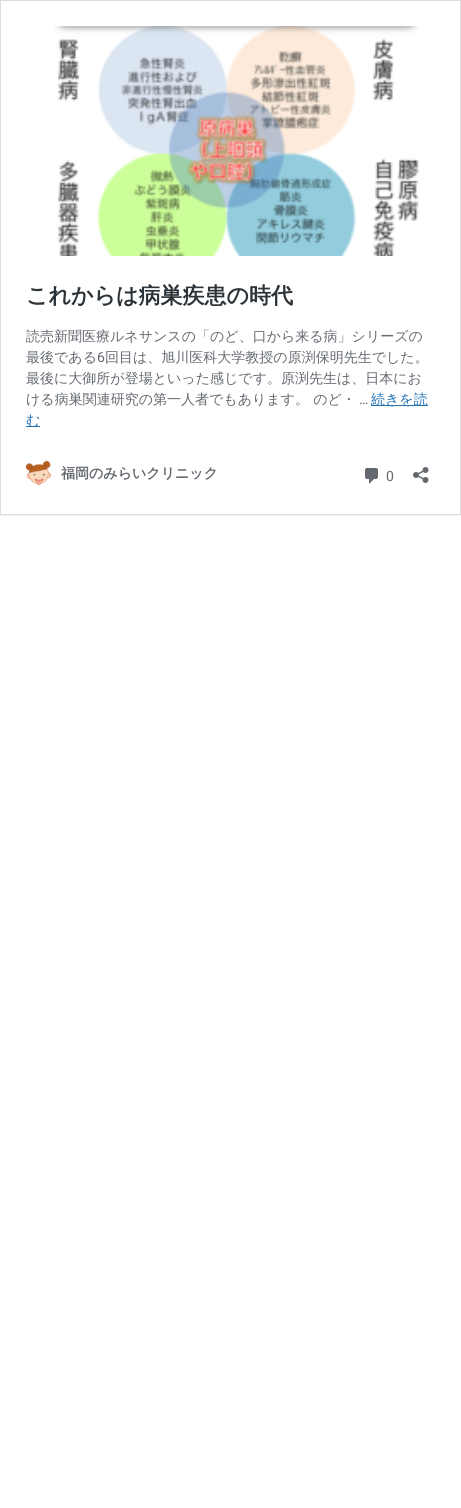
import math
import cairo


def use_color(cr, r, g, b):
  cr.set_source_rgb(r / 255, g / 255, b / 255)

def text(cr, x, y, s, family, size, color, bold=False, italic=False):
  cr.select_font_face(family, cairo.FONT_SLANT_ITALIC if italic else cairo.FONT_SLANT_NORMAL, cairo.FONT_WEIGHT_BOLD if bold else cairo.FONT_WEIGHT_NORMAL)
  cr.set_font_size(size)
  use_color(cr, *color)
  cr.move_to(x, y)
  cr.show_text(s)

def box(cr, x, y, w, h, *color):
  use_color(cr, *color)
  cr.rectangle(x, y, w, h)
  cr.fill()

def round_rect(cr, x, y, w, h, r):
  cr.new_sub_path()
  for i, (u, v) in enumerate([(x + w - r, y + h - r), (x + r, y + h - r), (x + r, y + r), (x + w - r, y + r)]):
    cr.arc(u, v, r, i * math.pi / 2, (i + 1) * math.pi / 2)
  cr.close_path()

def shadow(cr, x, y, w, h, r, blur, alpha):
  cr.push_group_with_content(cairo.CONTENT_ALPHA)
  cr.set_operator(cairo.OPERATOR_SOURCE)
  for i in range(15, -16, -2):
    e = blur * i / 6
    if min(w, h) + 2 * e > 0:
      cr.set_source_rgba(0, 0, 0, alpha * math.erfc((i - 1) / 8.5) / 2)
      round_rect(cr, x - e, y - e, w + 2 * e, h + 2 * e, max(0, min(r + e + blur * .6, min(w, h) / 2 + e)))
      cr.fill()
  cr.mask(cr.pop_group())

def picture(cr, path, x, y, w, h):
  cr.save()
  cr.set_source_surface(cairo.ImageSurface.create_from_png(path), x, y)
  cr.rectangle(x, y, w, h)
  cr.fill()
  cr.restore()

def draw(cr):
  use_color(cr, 255, 255, 255)
  cr.paint()
  cr.save()
  cr.rectangle(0, 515, 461, 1)
  cr.clip()
  use_color(cr, 0, 0, 0)
  shadow(cr, 0, 1, 461, 515, 0, 0.5, 0.05)
  cr.restore()
  cr.rectangle(0.5, 0.5, 460, 514)
  use_color(cr, 220, 220, 222)
  cr.set_line_width(1)
  cr.stroke()
  picture(cr, "img_01.png", 54, 26, 366, 230)
  box(cr, 371, 405, 57, 1, 34, 113, 177)
  box(cr, 26, 426, 14, 1, 34, 113, 177)
  picture(cr, "img_02.png", 26, 460, 25, 26)
  picture(cr, "img_03.png", 365, 468, 13, 16)
  picture(cr, "img_04.png", 413, 467, 16, 16)
  text(cr, 26, 303, "これからは病巣疾患の時代", "WenQuanYi Zen Hei", 22, (44, 51, 56), bold=True)
  text(cr, 26, 341, "読売新聞医療ルネサンスの「のど、口から来る病」シリーズの", "WenQuanYi Zen Hei Medium", 14, (100, 105, 112))
  text(cr, 26, 362, "最後である", "WenQuanYi Zen Hei Medium", 14, (100, 105, 112))
  text(cr, 97, 362, "6", "Roboto", 14, (100, 105, 112))
  text(cr, 105, 362, "回目は、旭川医科大学教授の原渕保明先生でした。", "WenQuanYi Zen Hei Medium", 14, (100, 105, 112))
  text(cr, 26, 383, "最後に大御所が登場といった感じです。原渕先生は、日本にお", "WenQuanYi Zen Hei Medium", 14, (100, 105, 112))
  text(cr, 26, 404, "ける病巣関連研究の第一人者でもあります。 のど・", "WenQuanYi Zen Hei Medium", 14, (100, 105, 112))
  text(cr, 359, 404, "…", "Roboto", 14, (100, 105, 112))
  text(cr, 371, 404, "続きを読", "WenQuanYi Zen Hei Medium", 14, (34, 113, 177))
  text(cr, 26, 425, "む", "WenQuanYi Zen Hei Medium", 14, (34, 113, 177))
  text(cr, 61, 478, "福岡のみらいクリニック", "WenQuanYi Zen Hei", 14, (100, 105, 112), bold=True)
  text(cr, 386, 481, "0", "Roboto", 14, (100, 105, 112))


surface = cairo.ImageSurface(cairo.FORMAT_RGB24, 461, 1508)
cr = cairo.Context(surface)
options = cairo.FontOptions()
options.set_hint_metrics(cairo.HINT_METRICS_OFF)
options.set_hint_style(cairo.HINT_STYLE_NONE)
cr.set_font_options(options)
cr.set_miter_limit(4)
draw(cr)
surface.write_to_png("out.png")
